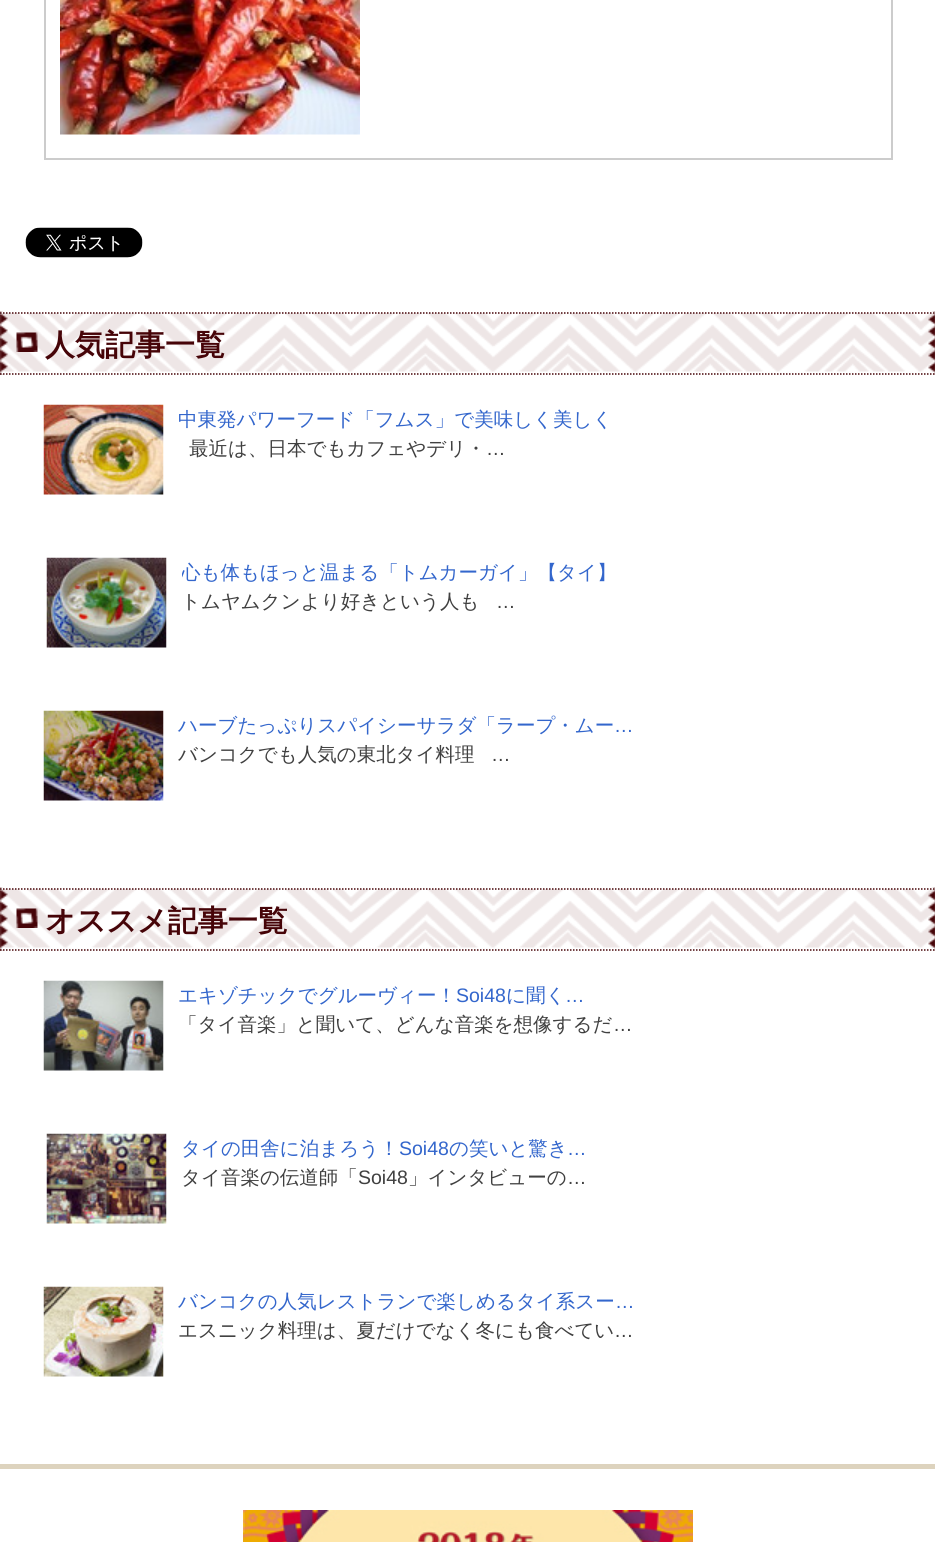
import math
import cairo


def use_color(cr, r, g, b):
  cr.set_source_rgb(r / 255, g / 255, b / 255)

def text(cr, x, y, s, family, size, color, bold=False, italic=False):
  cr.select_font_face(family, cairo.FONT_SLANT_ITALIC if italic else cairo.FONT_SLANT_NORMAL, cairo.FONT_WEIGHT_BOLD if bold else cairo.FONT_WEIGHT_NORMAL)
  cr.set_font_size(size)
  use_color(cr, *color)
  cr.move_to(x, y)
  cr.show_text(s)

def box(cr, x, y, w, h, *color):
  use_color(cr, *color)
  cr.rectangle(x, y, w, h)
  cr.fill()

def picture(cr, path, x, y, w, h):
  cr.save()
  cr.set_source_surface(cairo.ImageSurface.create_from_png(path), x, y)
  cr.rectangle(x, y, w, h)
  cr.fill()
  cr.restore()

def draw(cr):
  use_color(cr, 255, 255, 255)
  cr.paint()
  box(cr, 891, 0, 2, 159, 204, 204, 204)
  box(cr, 44, 158, 849, 2, 204, 204, 204)
  box(cr, 44, 0, 2, 159, 204, 204, 204)
  picture(cr, "img_01.png", 60, 0, 300, 135)
  picture(cr, "img_02.png", 25, 227, 118, 31)
  picture(cr, "img_03.png", 0, 311, 935, 64)
  cr.new_path()
  cr.move_to(0, 313)
  cr.line_to(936, 313)
  use_color(cr, 70, 4, 8)
  cr.set_line_width(1.5)
  cr.set_dash([1.5, 1.5])
  cr.stroke()
  cr.new_path()
  cr.move_to(0, 374)
  cr.line_to(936, 374)
  cr.stroke()
  picture(cr, "img_04.png", 16, 332, 22, 20)
  picture(cr, "img_05.png", 43, 404, 121, 91)
  picture(cr, "img_06.png", 46, 557, 121, 91)
  picture(cr, "img_07.png", 43, 710, 121, 91)
  picture(cr, "img_08.png", 0, 887, 935, 64)
  cr.new_path()
  cr.move_to(0, 889)
  cr.line_to(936, 889)
  cr.stroke()
  cr.new_path()
  cr.move_to(0, 950)
  cr.line_to(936, 950)
  cr.stroke()
  picture(cr, "img_09.png", 16, 908, 22, 20)
  picture(cr, "img_10.png", 43, 980, 121, 91)
  picture(cr, "img_11.png", 46, 1133, 121, 91)
  picture(cr, "img_12.png", 43, 1286, 121, 91)
  box(cr, 0, 1464, 935, 5, 221, 211, 190)
  picture(cr, "img_13.png", 243, 1510, 450, 32)
  text(cr, 45, 355, "人気記事一覧", "WenQuanYi Zen Hei", 30, (70, 4, 8), bold=True)
  text(cr, 178, 426, "中東発パワーフード「フムス」で美味しく美しく", "WenQuanYi Zen Hei Medium", 19.5, (51, 102, 204))
  text(cr, 189, 455, "最近は、日本でもカフェやデリ・", "WenQuanYi Zen Hei Medium", 19.5, (64, 64, 64))
  text(cr, 486, 455, "…", "Liberation Sans", 19.5, (64, 64, 64))
  cr.save()
  cr.rectangle(182, 558, 697, 59)
  cr.clip()
  text(cr, 181, 579, "心も体もほっと温まる「トムカーガイ」【タイ】", "WenQuanYi Zen Hei Medium", 19.5, (51, 102, 204))
  cr.restore()
  text(cr, 181, 608, "トムヤムクンより好きという人も", "WenQuanYi Zen Hei Medium", 19.5, (64, 64, 64))
  text(cr, 496, 608, "…", "Liberation Sans", 19.5, (64, 64, 64))
  text(cr, 178, 732, "ハーブたっぷりスパイシーサラダ「ラープ・ムー", "WenQuanYi Zen Hei Medium", 19.5, (51, 102, 204))
  text(cr, 614, 732, "…", "Liberation Sans", 19.5, (51, 102, 204))
  text(cr, 178, 761, "バンコクでも人気の東北タイ料理", "WenQuanYi Zen Hei Medium", 19.5, (64, 64, 64))
  text(cr, 491, 761, "…", "Liberation Sans", 19.5, (64, 64, 64))
  text(cr, 45, 931, "オススメ記事一覧", "WenQuanYi Zen Hei", 30, (70, 4, 8), bold=True)
  text(cr, 178, 1002, "エキゾチックでグルーヴィー！", "WenQuanYi Zen Hei Medium", 19.5, (51, 102, 204))
  text(cr, 456, 1002, "Soi48", "Liberation Sans", 19.5, (51, 102, 204))
  text(cr, 506, 1002, "に聞く", "WenQuanYi Zen Hei Medium", 19.5, (51, 102, 204))
  text(cr, 565, 1002, "…", "Liberation Sans", 19.5, (51, 102, 204))
  text(cr, 178, 1031, "「タイ音楽」と聞いて、どんな音楽を想像するだ", "WenQuanYi Zen Hei Medium", 19.5, (64, 64, 64))
  text(cr, 613, 1031, "…", "Liberation Sans", 19.5, (64, 64, 64))
  text(cr, 181, 1155, "タイの田舎に泊まろう！", "WenQuanYi Zen Hei Medium", 19.5, (51, 102, 204))
  text(cr, 399, 1155, "Soi48", "Liberation Sans", 19.5, (51, 102, 204))
  text(cr, 449, 1155, "の笑いと驚き", "WenQuanYi Zen Hei Medium", 19.5, (51, 102, 204))
  text(cr, 567, 1155, "…", "Liberation Sans", 19.5, (51, 102, 204))
  text(cr, 181, 1184, "タイ音楽の伝道師「", "WenQuanYi Zen Hei Medium", 19.5, (64, 64, 64))
  text(cr, 358, 1184, "Soi48", "Liberation Sans", 19.5, (64, 64, 64))
  text(cr, 408, 1184, "」インタビューの", "WenQuanYi Zen Hei Medium", 19.5, (64, 64, 64))
  text(cr, 567, 1184, "…", "Liberation Sans", 19.5, (64, 64, 64))
  text(cr, 178, 1308, "バンコクの人気レストランで楽しめるタイ系スー", "WenQuanYi Zen Hei Medium", 19.5, (51, 102, 204))
  text(cr, 615, 1308, "…", "Liberation Sans", 19.5, (51, 102, 204))
  text(cr, 178, 1337, "エスニック料理は、夏だけでなく冬にも食べてい", "WenQuanYi Zen Hei Medium", 19.5, (64, 64, 64))
  text(cr, 614, 1337, "…", "Liberation Sans", 19.5, (64, 64, 64))


surface = cairo.ImageSurface(cairo.FORMAT_RGB24, 935, 1542)
cr = cairo.Context(surface)
options = cairo.FontOptions()
options.set_hint_metrics(cairo.HINT_METRICS_OFF)
options.set_hint_style(cairo.HINT_STYLE_NONE)
cr.set_font_options(options)
cr.set_miter_limit(4)
draw(cr)
surface.write_to_png("out.png")
